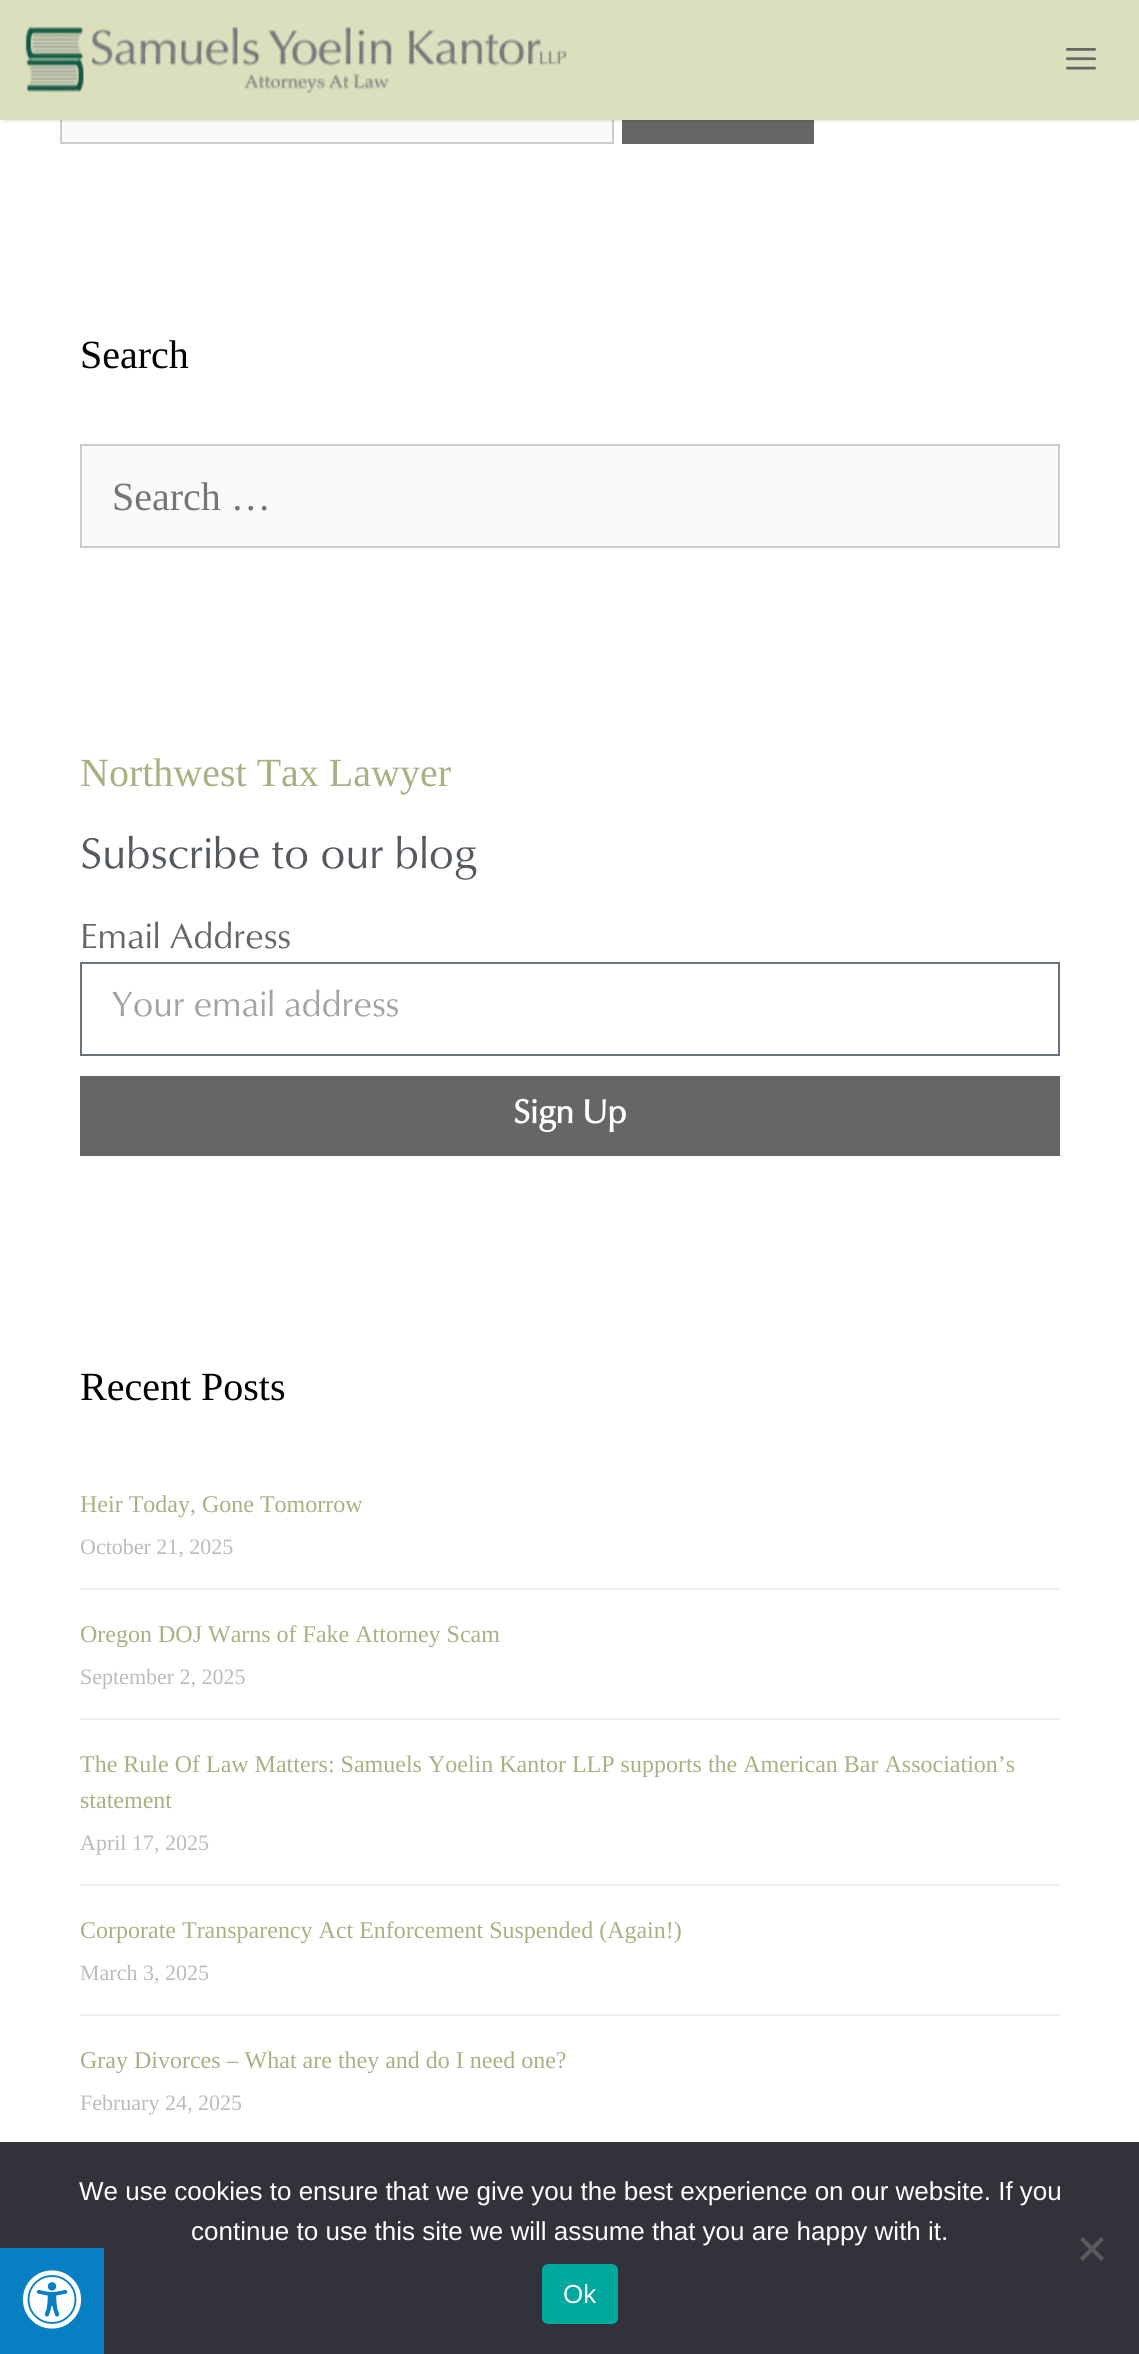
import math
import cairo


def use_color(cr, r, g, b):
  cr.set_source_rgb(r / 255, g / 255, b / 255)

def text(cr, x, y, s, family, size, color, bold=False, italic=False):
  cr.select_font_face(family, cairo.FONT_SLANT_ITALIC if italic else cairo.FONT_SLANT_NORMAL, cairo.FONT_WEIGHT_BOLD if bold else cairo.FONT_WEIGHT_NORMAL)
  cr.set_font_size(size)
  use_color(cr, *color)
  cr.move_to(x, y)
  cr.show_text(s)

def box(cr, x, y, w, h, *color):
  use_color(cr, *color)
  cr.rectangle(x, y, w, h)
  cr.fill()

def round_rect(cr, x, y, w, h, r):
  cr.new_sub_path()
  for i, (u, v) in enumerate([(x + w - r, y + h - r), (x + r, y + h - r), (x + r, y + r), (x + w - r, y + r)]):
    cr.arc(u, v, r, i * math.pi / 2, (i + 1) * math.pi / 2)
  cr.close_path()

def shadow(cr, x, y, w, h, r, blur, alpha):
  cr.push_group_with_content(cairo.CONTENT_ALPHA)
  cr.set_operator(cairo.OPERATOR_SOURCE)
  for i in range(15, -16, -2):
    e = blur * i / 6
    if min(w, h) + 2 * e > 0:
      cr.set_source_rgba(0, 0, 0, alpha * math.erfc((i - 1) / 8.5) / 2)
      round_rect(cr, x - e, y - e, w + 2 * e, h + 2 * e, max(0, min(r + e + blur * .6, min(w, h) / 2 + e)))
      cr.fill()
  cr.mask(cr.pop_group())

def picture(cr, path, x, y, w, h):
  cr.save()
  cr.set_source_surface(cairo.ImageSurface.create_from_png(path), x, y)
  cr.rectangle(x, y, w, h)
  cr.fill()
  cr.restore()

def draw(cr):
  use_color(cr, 255, 255, 255)
  cr.paint()
  box(cr, 62, 120, 550, 22, 250, 250, 250)
  cr.rectangle(61, 41, 552, 102)
  use_color(cr, 204, 204, 204)
  cr.stroke()
  box(cr, 622, 120, 192, 24, 102, 102, 102)
  use_color(cr, 0, 0, 0)
  shadow(cr, 4, 8, 1132, 112, 0, 2, 0.2)
  box(cr, 0, 0, 1139, 120, 219, 223, 190)
  picture(cr, "img_01.png", 25, 26, 542, 68)
  picture(cr, "img_02.png", 1066, 48, 30, 22)
  use_color(cr, 250, 250, 250)
  cr.rectangle(81, 445, 978, 102)
  cr.fill_preserve()
  use_color(cr, 204, 204, 204)
  cr.stroke()
  cr.rectangle(81, 963, 978, 92)
  use_color(cr, 105, 114, 125)
  cr.stroke()
  box(cr, 80, 1076, 980, 80, 102, 102, 102)
  box(cr, 80, 1588, 980, 2, 238, 238, 238)
  box(cr, 80, 1718, 980, 2, 238, 238, 238)
  box(cr, 80, 1884, 980, 2, 238, 238, 238)
  box(cr, 80, 2014, 980, 2, 238, 238, 238)
  box(cr, 0, 2142, 1139, 212, 50, 50, 58)
  box(cr, 0, 2248, 104, 106, 7, 128, 195)
  picture(cr, "img_03.png", 22, 2270, 60, 59)
  use_color(cr, 89, 89, 93)
  cr.new_path()
  cr.move_to(1101, 2237)
  cr.line_to(1104, 2240)
  cr.line_to(1083, 2261)
  cr.line_to(1080, 2258)
  cr.close_path()
  cr.fill()
  cr.new_path()
  cr.move_to(1080, 2240)
  cr.line_to(1083, 2237)
  cr.line_to(1104, 2258)
  cr.line_to(1101, 2261)
  cr.close_path()
  cr.fill()
  use_color(cr, 0, 169, 157)
  round_rect(cr, 542, 2264, 76, 60, 6)
  cr.fill()
  text(cr, 80, 368, "Search", "Liberation Serif", 40, (0, 0, 0))
  text(cr, 112, 510, "Search …", "Liberation Serif", 40, (117, 117, 117))
  text(cr, 80, 786, "Northwest Tax Lawyer", "Liberation Serif", 40, (168, 177, 130))
  text(cr, 80, 868, "Subscribe to our blog", "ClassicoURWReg", 44, (84, 89, 95))
  text(cr, 80, 948, "Email Address", "ClassicoURWReg", 36, (102, 102, 102))
  text(cr, 112, 1016, "Your email address", "ClassicoURWReg", 36, (163, 163, 163))
  text(cr, 513, 1123, "Sign Up", "ClassicoURWReg", 34, (255, 255, 255), bold=True)
  text(cr, 80, 1400, "Recent Posts", "Liberation Serif", 40, (0, 0, 0))
  text(cr, 80, 1512, "Heir Today, Gone Tomorrow", "Liberation Serif", 24, (168, 177, 130))
  text(cr, 80, 1554, "October 21, 2025", "Liberation Serif", 22, (187, 187, 187))
  text(cr, 80, 1642, "Oregon DOJ Warns of Fake Attorney Scam", "Liberation Serif", 24, (168, 177, 130))
  text(cr, 80, 1684, "September 2, 2025", "Liberation Serif", 22, (187, 187, 187))
  text(cr, 80, 1772, "The Rule Of Law Matters: Samuels Yoelin Kantor LLP supports the American Bar Association’s", "Liberation Serif", 24, (168, 177, 130))
  text(cr, 80, 1808, "statement", "Liberation Serif", 24, (168, 177, 130))
  text(cr, 80, 1850, "April 17, 2025", "Liberation Serif", 22, (187, 187, 187))
  text(cr, 80, 1938, "Corporate Transparency Act Enforcement Suspended (Again!)", "Liberation Serif", 24, (168, 177, 130))
  text(cr, 80, 1980, "March 3, 2025", "Liberation Serif", 22, (187, 187, 187))
  text(cr, 80, 2068, "Gray Divorces – What are they and do I need one?", "Liberation Serif", 24, (168, 177, 130))
  text(cr, 80, 2110, "February 24, 2025", "Liberation Serif", 22, (187, 187, 187))
  text(cr, 79, 2200, "We use cookies to ensure that we give you the best experience on our website. If you", "Liberation Sans", 26, (255, 255, 255))
  text(cr, 191, 2240, "continue to use this site we will assume that you are happy with it.", "Liberation Sans", 26, (255, 255, 255))
  text(cr, 563, 2303, "Ok", "Liberation Sans", 26, (255, 255, 255))


surface = cairo.ImageSurface(cairo.FORMAT_RGB24, 1139, 2354)
cr = cairo.Context(surface)
options = cairo.FontOptions()
options.set_hint_metrics(cairo.HINT_METRICS_OFF)
options.set_hint_style(cairo.HINT_STYLE_NONE)
cr.set_font_options(options)
cr.set_miter_limit(4)
draw(cr)
surface.write_to_png("out.png")
